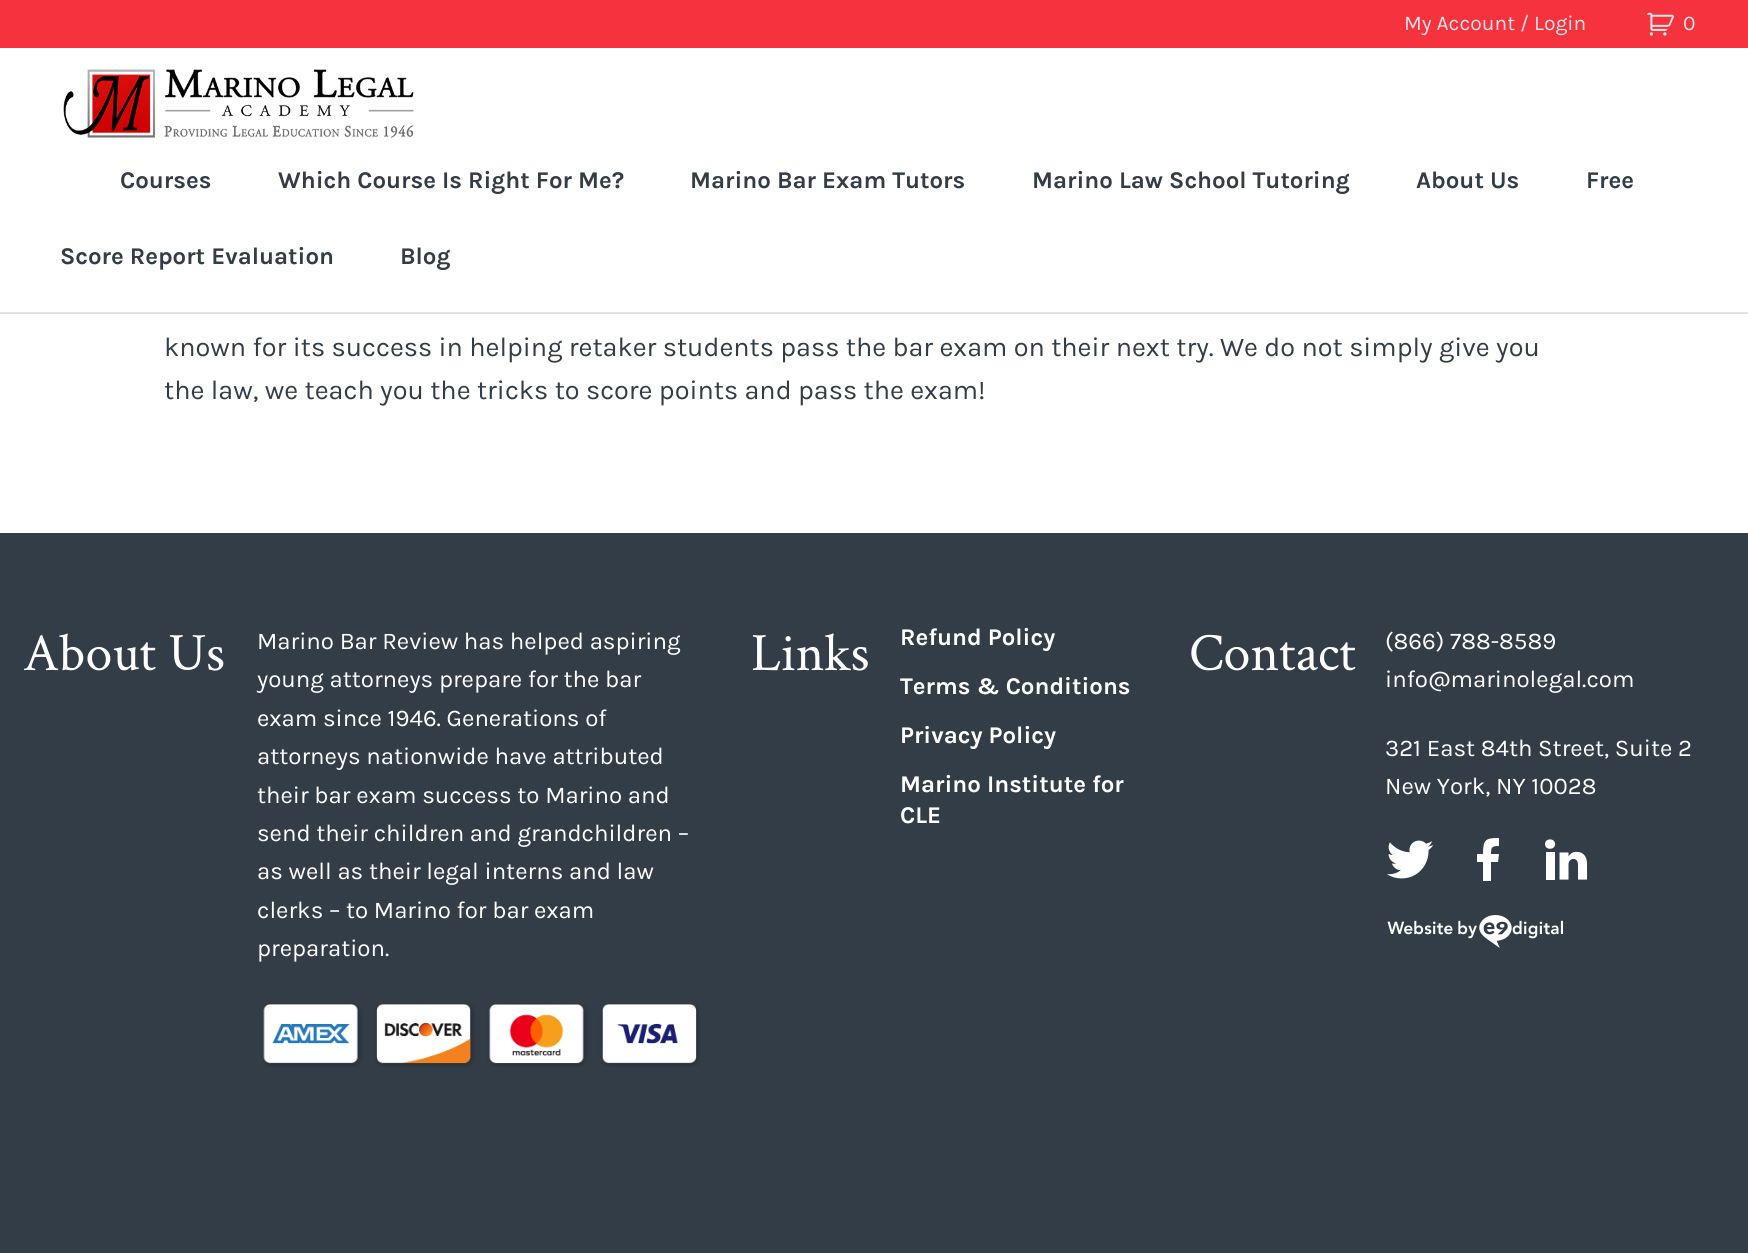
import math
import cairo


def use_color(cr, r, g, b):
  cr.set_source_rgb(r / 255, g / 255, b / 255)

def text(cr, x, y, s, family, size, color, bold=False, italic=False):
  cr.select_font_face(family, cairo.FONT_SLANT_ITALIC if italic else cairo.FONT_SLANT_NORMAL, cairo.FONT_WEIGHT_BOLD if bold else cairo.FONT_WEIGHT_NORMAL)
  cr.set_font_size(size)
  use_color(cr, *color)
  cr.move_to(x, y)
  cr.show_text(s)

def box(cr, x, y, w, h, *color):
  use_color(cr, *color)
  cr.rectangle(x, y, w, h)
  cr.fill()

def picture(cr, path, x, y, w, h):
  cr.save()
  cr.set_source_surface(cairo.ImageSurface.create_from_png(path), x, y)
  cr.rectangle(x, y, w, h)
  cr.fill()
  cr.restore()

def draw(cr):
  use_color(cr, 51, 61, 71)
  cr.paint()
  box(cr, 0, 48, 1748, 485, 255, 255, 255)
  cr.set_source_rgba(0.173, 0.255, 0.263, 0.15)
  cr.rectangle(0, 312, 1748, 2)
  cr.fill()
  box(cr, 0, 0, 1748, 48, 246, 50, 62)
  picture(cr, "img_01.png", 1647, 12, 27, 24)
  picture(cr, "img_02.png", 63, 69, 351, 69)
  picture(cr, "img_03.png", 263, 1003, 437, 64)
  picture(cr, "img_04.png", 1386, 840, 48, 39)
  use_color(cr, 255, 255, 255)
  cr.new_path()
  cr.move_to(1491, 881)
  cr.line_to(1491, 862)
  cr.line_to(1498, 862)
  cr.line_to(1499, 854)
  cr.line_to(1491, 854)
  cr.curve_to(1491, 847, 1492, 846, 1499, 846)
  cr.line_to(1499, 838)
  cr.curve_to(1486, 838, 1483, 839, 1483, 854)
  cr.line_to(1477, 854)
  cr.line_to(1477, 862)
  cr.line_to(1483, 862)
  cr.line_to(1483, 881)
  cr.close_path()
  cr.fill()
  picture(cr, "img_05.png", 1545, 839, 43, 41)
  picture(cr, "img_06.png", 1387, 915, 176, 33)
  text(cr, 1404, 30, "My Account / Login", "Karla", 21, (228, 229, 230))
  text(cr, 1683, 30, "0", "Karla", 21, (228, 229, 230))
  text(cr, 120, 188, "Courses", "Karla", 24, (51, 61, 71), bold=True)
  text(cr, 278, 188, "Which Course Is Right For Me?", "Karla", 24, (51, 61, 71), bold=True)
  text(cr, 690, 188, "Marino Bar Exam Tutors", "Karla", 24, (51, 61, 71), bold=True)
  text(cr, 1032, 188, "Marino Law School Tutoring", "Karla", 24, (51, 61, 71), bold=True)
  text(cr, 1416, 188, "About Us", "Karla", 24, (51, 61, 71), bold=True)
  text(cr, 1586, 188, "Free", "Karla", 24, (51, 61, 71), bold=True)
  text(cr, 60, 264, "Score Report Evaluation", "Karla", 24, (51, 61, 71), bold=True)
  text(cr, 400, 264, "Blog", "Karla", 24, (51, 61, 71), bold=True)
  text(cr, 164, 356, "known for its success in helping retaker students pass the bar exam on their next try. We do not simply give you", "Karla", 27, (51, 61, 71))
  text(cr, 164, 399, "the law, we teach you the tricks to score points and pass the exam!", "Karla", 27, (51, 61, 71))
  text(cr, 23, 670, "About Us", "Crimson Text", 54, (255, 255, 255))
  text(cr, 257, 649, "Marino Bar Review has helped aspiring", "Karla", 24, (255, 255, 255))
  text(cr, 257, 687, "young attorneys prepare for the bar", "Karla", 24, (255, 255, 255))
  text(cr, 257, 726, "exam since 1946. Generations of", "Karla", 24, (255, 255, 255))
  text(cr, 257, 764, "attorneys nationwide have attributed", "Karla", 24, (255, 255, 255))
  text(cr, 257, 803, "their bar exam success to Marino and", "Karla", 24, (255, 255, 255))
  text(cr, 257, 841, "send their children and grandchildren –", "Karla", 24, (255, 255, 255))
  text(cr, 257, 879, "as well as their legal interns and law", "Karla", 24, (255, 255, 255))
  text(cr, 257, 918, "clerks – to Marino for bar exam", "Karla", 24, (255, 255, 255))
  text(cr, 257, 956, "preparation.", "Karla", 24, (255, 255, 255))
  text(cr, 751, 670, "Links", "Crimson Text", 54, (255, 255, 255))
  text(cr, 900, 645, "Refund Policy", "Karla", 24, (255, 255, 255), bold=True)
  text(cr, 900, 694, "Terms & Conditions", "Karla", 24, (255, 255, 255), bold=True)
  text(cr, 900, 743, "Privacy Policy", "Karla", 24, (255, 255, 255), bold=True)
  text(cr, 900, 792, "Marino Institute for", "Karla", 24, (255, 255, 255), bold=True)
  text(cr, 900, 823, "CLE", "Karla", 24, (255, 255, 255), bold=True)
  text(cr, 1189, 670, "Contact", "Crimson Text", 54, (255, 255, 255))
  text(cr, 1385, 649, "(866) 788-8589", "Karla", 24, (255, 255, 255))
  text(cr, 1385, 687, "info@marinolegal.com", "Karla", 24, (255, 255, 255))
  text(cr, 1385, 756, "321 East 84th Street, Suite 2", "Karla", 24, (255, 255, 255))
  text(cr, 1385, 794, "New York, NY 10028", "Karla", 24, (255, 255, 255))


surface = cairo.ImageSurface(cairo.FORMAT_RGB24, 1748, 1253)
cr = cairo.Context(surface)
options = cairo.FontOptions()
options.set_hint_metrics(cairo.HINT_METRICS_OFF)
options.set_hint_style(cairo.HINT_STYLE_NONE)
cr.set_font_options(options)
cr.set_miter_limit(4)
draw(cr)
surface.write_to_png("out.png")
